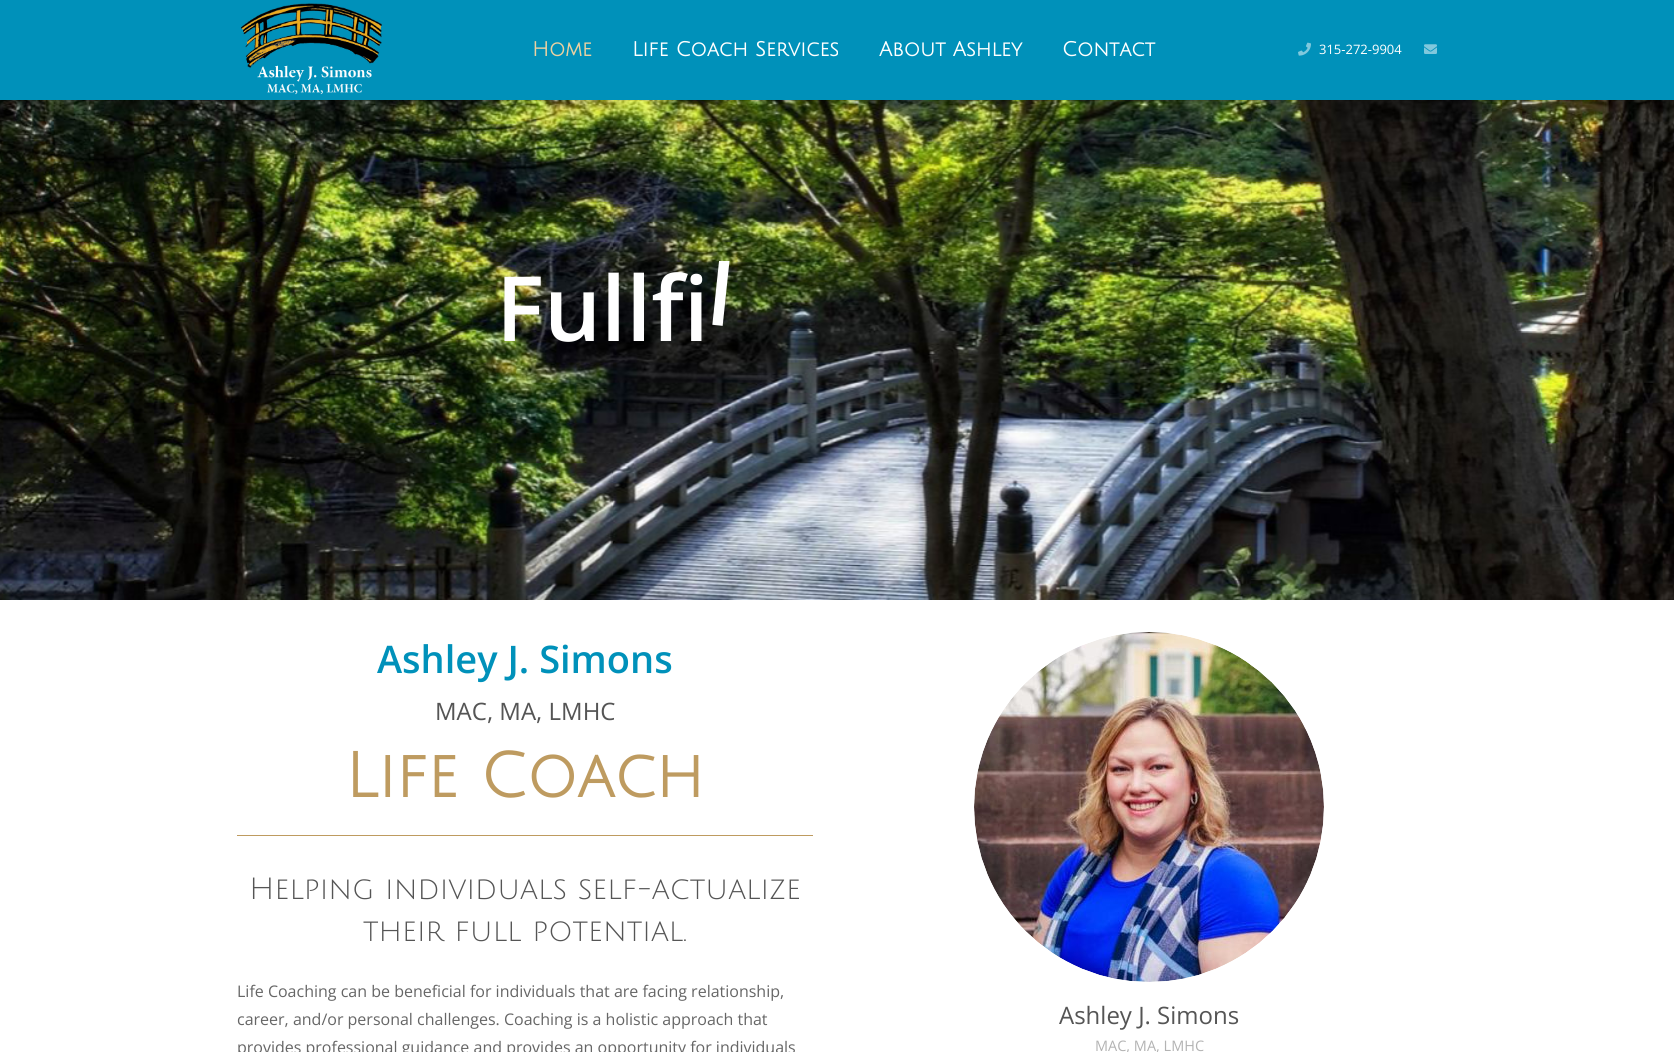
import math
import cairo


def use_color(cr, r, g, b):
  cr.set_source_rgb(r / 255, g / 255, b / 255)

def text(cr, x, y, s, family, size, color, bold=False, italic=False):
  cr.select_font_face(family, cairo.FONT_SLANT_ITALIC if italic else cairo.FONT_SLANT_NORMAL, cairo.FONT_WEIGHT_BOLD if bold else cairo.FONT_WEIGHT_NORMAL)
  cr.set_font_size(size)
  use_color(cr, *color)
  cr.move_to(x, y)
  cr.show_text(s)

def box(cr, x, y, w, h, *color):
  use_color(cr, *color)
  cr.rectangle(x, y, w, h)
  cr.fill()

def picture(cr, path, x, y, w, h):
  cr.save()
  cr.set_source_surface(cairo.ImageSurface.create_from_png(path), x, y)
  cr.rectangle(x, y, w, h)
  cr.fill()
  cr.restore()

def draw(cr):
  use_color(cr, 255, 255, 255)
  cr.paint()
  picture(cr, "img_04.png", 0, 100, 1674, 500)
  cr.set_source_rgba(0, 0, 0, 0.08)
  cr.rectangle(11, 100, 1634, 1)
  cr.fill()
  box(cr, 0, 0, 1674, 100, 0, 145, 186)
  picture(cr, "img_01.png", 240, 3, 142, 92)
  picture(cr, "img_02.png", 1298, 42, 13, 14)
  picture(cr, "img_03.png", 1424, 44, 13, 10)
  box(cr, 237, 835, 576, 1, 190, 155, 96)
  picture(cr, "img_05.png", 974, 632, 350, 350)
  text(cr, 532, 56, "Home", "Julius Sans One", 20, (237, 209, 161), bold=True)
  text(cr, 632, 56, "Life Coach Services", "Julius Sans One", 20, (255, 255, 255), bold=True)
  text(cr, 879, 56, "About Ashley", "Julius Sans One", 20, (255, 255, 255), bold=True)
  text(cr, 1062, 56, "Contact", "Julius Sans One", 20, (255, 255, 255), bold=True)
  text(cr, 1319, 54, "315-272-9904", "Open Sans", 13, (255, 255, 255))
  text(cr, 496, 341, "Fullfi", "Open Sans SemiBold", 90, (255, 255, 255))
  cr.save()
  cr.rectangle(496, 261, 681, 90)
  cr.clip()
  cr.save()
  cr.translate(705, 324)
  cr.rotate(6 * math.pi / 180)
  text(cr, 0, 0, "l", "Open Sans SemiBold", 90, (255, 255, 255))
  cr.restore()
  cr.restore()
  text(cr, 377, 673, "Ashley J. Simons", "Open Sans SemiBold", 38, (0, 145, 186))
  text(cr, 435, 720, "MAC, MA, LMHC", "Open Sans", 24, (85, 85, 85))
  text(cr, 345, 797, "Life Coach", "Julius Sans One", 62, (190, 155, 96), bold=True)
  text(cr, 249, 899, "Helping individuals self-actualize", "Julius Sans One", 30, (85, 85, 85))
  text(cr, 363, 941, "their full potential.", "Julius Sans One", 30, (85, 85, 85))
  text(cr, 237, 997, "Life Coaching can be beneficial for individuals that are facing relationship,", "Open Sans", 16, (102, 102, 102))
  text(cr, 237, 1025, "career, and/or personal challenges. Coaching is a holistic approach that", "Open Sans", 16, (102, 102, 102))
  text(cr, 237, 1053, "provides professional guidance and provides an opportunity for individuals", "Open Sans", 16, (102, 102, 102))
  text(cr, 1059, 1024, "Ashley J. Simons", "Open Sans", 24, (85, 85, 85))
  text(cr, 1095, 1051, "MAC, MA, LMHC", "Open Sans", 14.5, (179, 179, 179))


surface = cairo.ImageSurface(cairo.FORMAT_RGB24, 1674, 1052)
cr = cairo.Context(surface)
options = cairo.FontOptions()
options.set_hint_metrics(cairo.HINT_METRICS_OFF)
options.set_hint_style(cairo.HINT_STYLE_NONE)
cr.set_font_options(options)
cr.set_miter_limit(4)
draw(cr)
surface.write_to_png("out.png")
